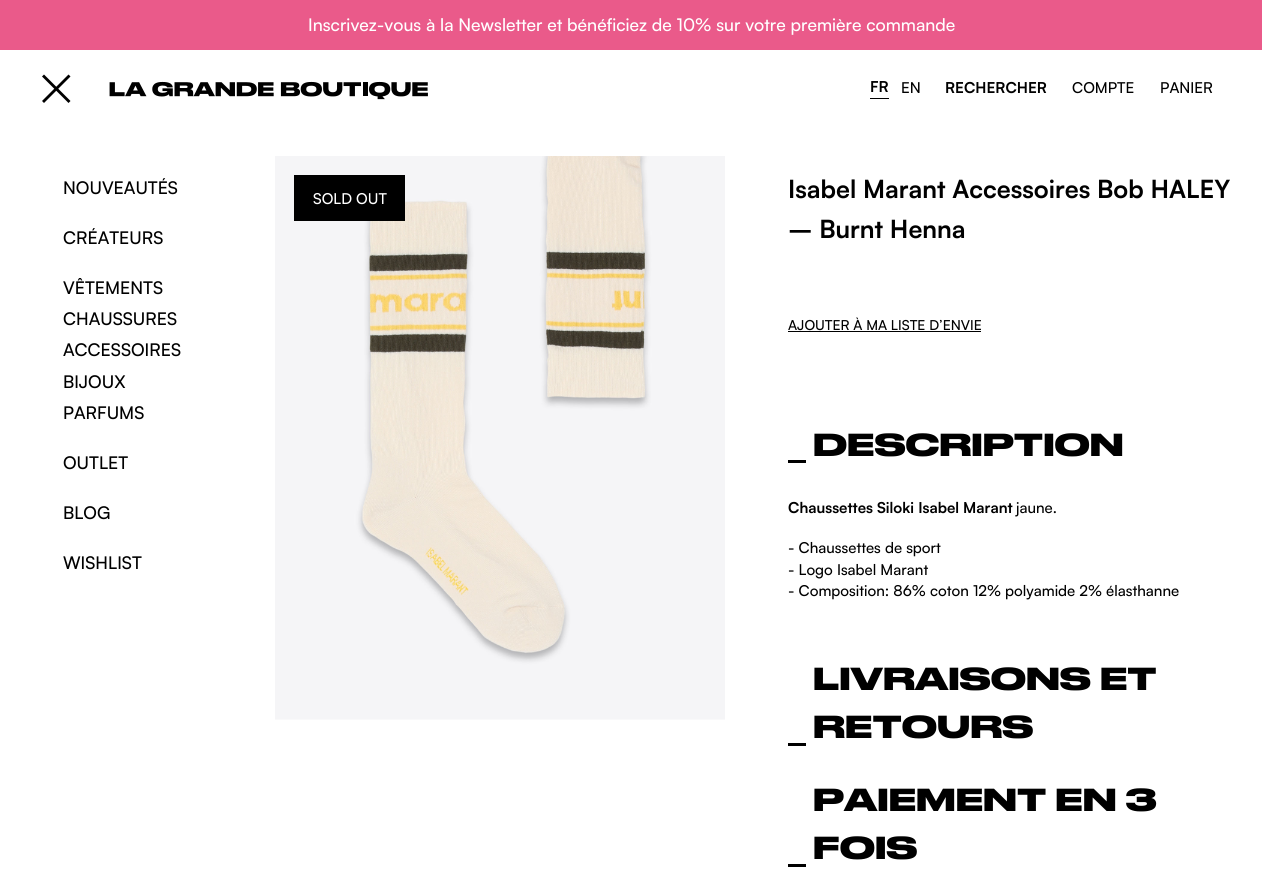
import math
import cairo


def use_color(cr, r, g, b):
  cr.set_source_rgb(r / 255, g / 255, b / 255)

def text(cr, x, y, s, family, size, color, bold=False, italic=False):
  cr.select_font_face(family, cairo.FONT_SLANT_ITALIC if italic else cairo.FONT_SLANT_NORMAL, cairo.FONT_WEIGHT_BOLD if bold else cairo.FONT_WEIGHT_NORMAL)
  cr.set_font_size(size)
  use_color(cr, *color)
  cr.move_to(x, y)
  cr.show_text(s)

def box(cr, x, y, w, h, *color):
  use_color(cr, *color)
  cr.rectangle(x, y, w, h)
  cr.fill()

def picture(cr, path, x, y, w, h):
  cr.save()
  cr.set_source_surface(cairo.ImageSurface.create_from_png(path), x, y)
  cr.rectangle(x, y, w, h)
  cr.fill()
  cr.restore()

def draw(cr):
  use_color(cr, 255, 255, 255)
  cr.paint()
  box(cr, 0, 0, 1262, 50, 234, 90, 138)
  use_color(cr, 0, 0, 0)
  cr.new_path()
  cr.move_to(44, 74.5)
  cr.line_to(70.5, 101)
  cr.line_to(68.5, 103)
  cr.line_to(42, 76.5)
  cr.close_path()
  cr.fill()
  cr.new_path()
  cr.move_to(42, 101)
  cr.line_to(68.5, 74.5)
  cr.line_to(70.5, 76.5)
  cr.line_to(44, 103)
  cr.close_path()
  cr.fill()
  picture(cr, "img_01.png", 109, 81, 319, 19)
  box(cr, 870, 98, 19, 1, 0, 0, 0)
  picture(cr, "img_02.png", 275, 156, 450, 564)
  box(cr, 294, 175, 111, 46, 0, 0, 0)
  box(cr, 788, 331, 193, 1, 0, 0, 0)
  box(cr, 788, 460, 18, 3, 0, 0, 0)
  box(cr, 788, 743, 18, 3, 0, 0, 0)
  box(cr, 788, 864, 18, 3, 0, 0, 0)
  text(cr, 308, 31, "Inscrivez-vous à la Newsletter et bénéficiez de 10% sur votre première commande", "Satoshi Medium", 17.5, (255, 255, 255))
  text(cr, 870, 92, "FR", "Satoshi", 15, (0, 0, 0), bold=True)
  text(cr, 901, 93, "EN", "Satoshi Medium", 15, (0, 0, 0))
  text(cr, 945, 93, "RECHERCHER", "Satoshi", 15, (0, 0, 0), bold=True)
  text(cr, 1072, 93, "COMPTE", "Satoshi Medium", 15, (0, 0, 0))
  text(cr, 1160, 93, "PANIER", "Satoshi Medium", 15, (0, 0, 0))
  text(cr, 63, 194, "NOUVEAUTÉS", "Satoshi Medium", 17.5, (0, 0, 0))
  text(cr, 63, 244, "CRÉATEURS", "Satoshi Medium", 17.5, (0, 0, 0))
  text(cr, 63, 294, "VÊTEMENTS", "Satoshi Medium", 17.5, (0, 0, 0))
  text(cr, 63, 325, "CHAUSSURES", "Satoshi Medium", 17.5, (0, 0, 0))
  text(cr, 63, 356, "ACCESSOIRES", "Satoshi Medium", 17.5, (0, 0, 0))
  text(cr, 63, 388, "BIJOUX", "Satoshi Medium", 17.5, (0, 0, 0))
  text(cr, 63, 419, "PARFUMS", "Satoshi Medium", 17.5, (0, 0, 0))
  text(cr, 63, 469, "OUTLET", "Satoshi Medium", 17.5, (0, 0, 0))
  text(cr, 63, 519, "BLOG", "Satoshi Medium", 17.5, (0, 0, 0))
  text(cr, 63, 569, "WISHLIST", "Satoshi Medium", 17.5, (0, 0, 0))
  text(cr, 313, 204, "SOLD OUT", "Satoshi Medium", 15, (255, 255, 255))
  text(cr, 788, 198, "Isabel Marant Accessoires Bob HALEY", "Satoshi", 25, (0, 0, 0), bold=True)
  text(cr, 788, 238, "– Burnt Henna", "Satoshi", 25, (0, 0, 0), bold=True)
  text(cr, 788, 330, "AJOUTER À MA LISTE D’ENVIE", "Satoshi Medium", 13.75, (0, 0, 0))
  text(cr, 813, 456, "DESCRIPTION", "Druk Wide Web", 30, (0, 0, 0), bold=True)
  text(cr, 788, 513, "Chaussettes Siloki Isabel Marant", "Satoshi", 15, (0, 0, 0), bold=True)
  text(cr, 1016, 513, "jaune.", "Satoshi Medium", 15, (0, 0, 0))
  text(cr, 788, 553, "- Chaussettes de sport", "Satoshi Medium", 15, (0, 0, 0))
  text(cr, 788, 575, "- Logo Isabel Marant", "Satoshi Medium", 15, (0, 0, 0))
  text(cr, 788, 596, "- Composition: 86% coton 12% polyamide 2% élasthanne", "Satoshi Medium", 15, (0, 0, 0))
  text(cr, 813, 690, "LIVRAISONS ET", "Druk Wide Web", 30, (0, 0, 0), bold=True)
  text(cr, 813, 738, "RETOURS", "Druk Wide Web", 30, (0, 0, 0), bold=True)
  text(cr, 813, 811, "PAIEMENT EN 3", "Druk Wide Web", 30, (0, 0, 0), bold=True)
  text(cr, 813, 859, "FOIS", "Druk Wide Web", 30, (0, 0, 0), bold=True)


surface = cairo.ImageSurface(cairo.FORMAT_RGB24, 1262, 878)
cr = cairo.Context(surface)
options = cairo.FontOptions()
options.set_hint_metrics(cairo.HINT_METRICS_OFF)
options.set_hint_style(cairo.HINT_STYLE_NONE)
cr.set_font_options(options)
cr.set_miter_limit(4)
draw(cr)
surface.write_to_png("out.png")
